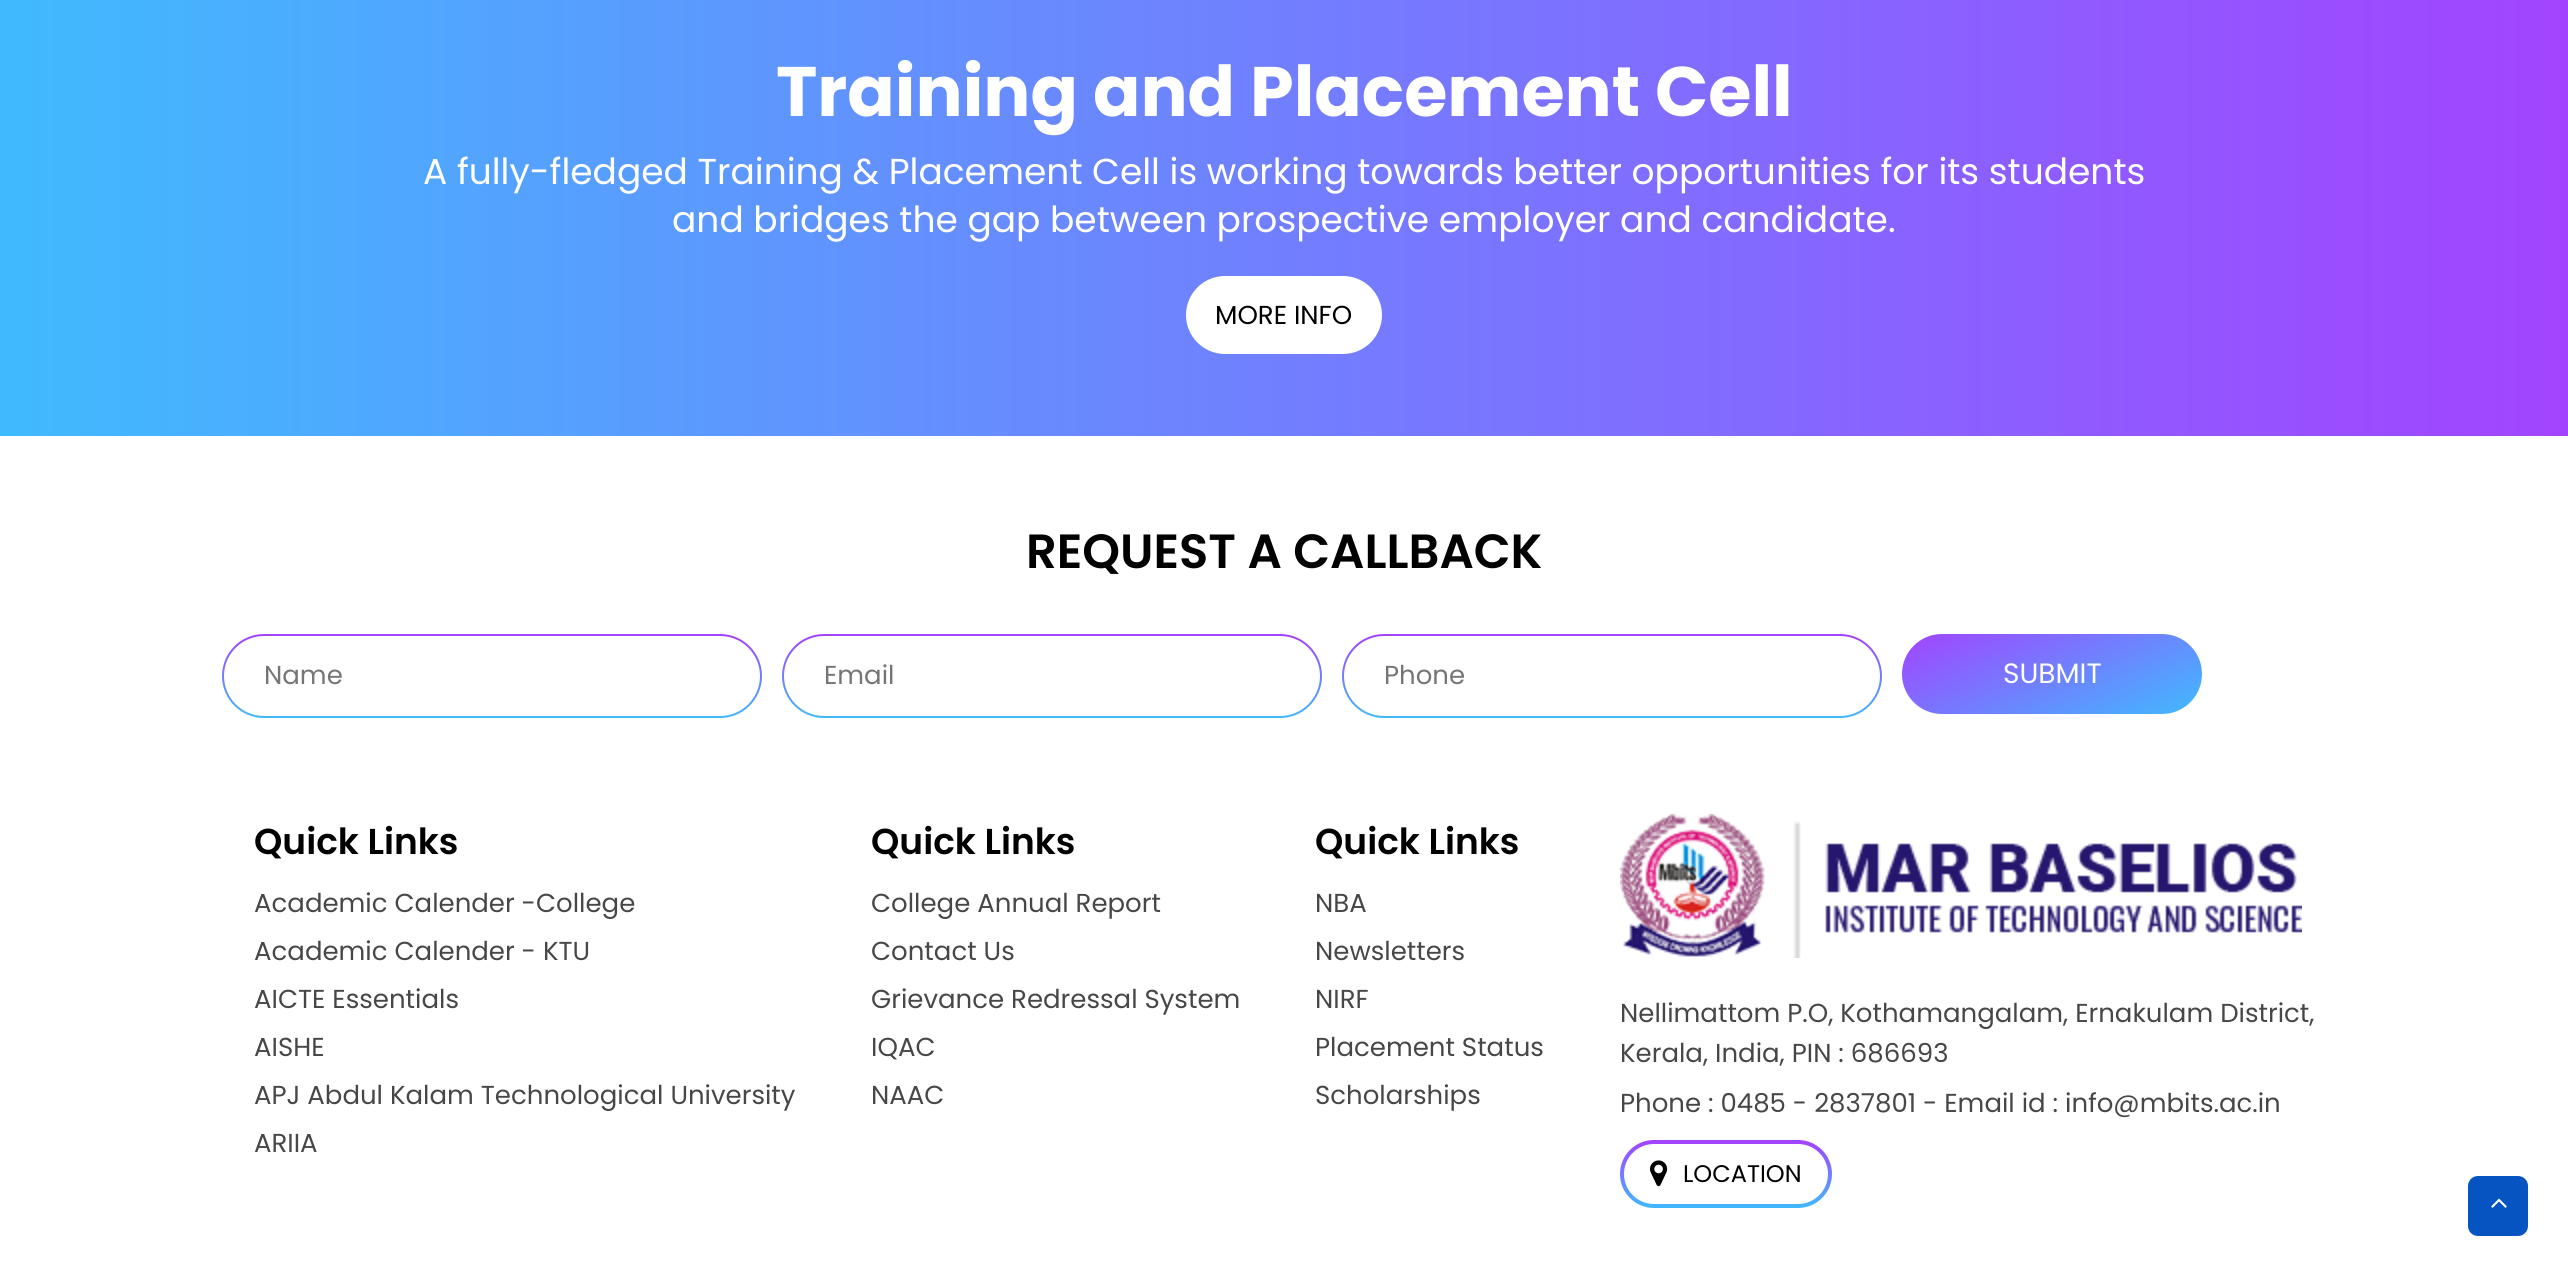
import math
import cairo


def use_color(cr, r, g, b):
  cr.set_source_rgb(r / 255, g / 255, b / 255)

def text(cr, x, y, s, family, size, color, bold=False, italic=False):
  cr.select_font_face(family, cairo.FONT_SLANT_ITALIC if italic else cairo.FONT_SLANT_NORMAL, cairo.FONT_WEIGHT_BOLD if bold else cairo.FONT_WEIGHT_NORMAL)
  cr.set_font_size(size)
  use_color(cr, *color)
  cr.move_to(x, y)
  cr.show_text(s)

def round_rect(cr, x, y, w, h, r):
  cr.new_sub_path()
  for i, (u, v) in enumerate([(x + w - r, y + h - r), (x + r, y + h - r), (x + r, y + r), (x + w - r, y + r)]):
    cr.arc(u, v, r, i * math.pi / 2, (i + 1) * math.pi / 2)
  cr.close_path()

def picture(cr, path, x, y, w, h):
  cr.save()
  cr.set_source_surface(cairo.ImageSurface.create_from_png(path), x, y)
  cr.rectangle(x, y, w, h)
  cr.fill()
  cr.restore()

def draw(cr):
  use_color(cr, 255, 255, 255)
  cr.paint()
  gradient = cairo.LinearGradient(2568, 212, 0, 212)
  gradient.add_color_stop_rgba(0, 0.635, 0.267, 1, 1)
  gradient.add_color_stop_rgba(1, 0.251, 0.729, 0.996, 1)
  cr.set_source(gradient)
  cr.rectangle(0, 0, 2568, 436)
  cr.fill()
  use_color(cr, 255, 255, 255)
  round_rect(cr, 1186, 276, 196, 78, 39)
  cr.fill()
  gradient = cairo.LinearGradient(492, 634, 492, 718)
  gradient.add_color_stop_rgba(0, 0.647, 0.255, 1, 1)
  gradient.add_color_stop_rgba(1, 0.251, 0.725, 0.996, 1)
  cr.set_source(gradient)
  round_rect(cr, 222, 634, 540, 84, 42)
  cr.fill()
  use_color(cr, 255, 255, 255)
  round_rect(cr, 224, 636, 536, 80, 40)
  cr.fill()
  gradient = cairo.LinearGradient(1052, 634, 1052, 718)
  gradient.add_color_stop_rgba(0, 0.647, 0.255, 1, 1)
  gradient.add_color_stop_rgba(1, 0.251, 0.725, 0.996, 1)
  cr.set_source(gradient)
  round_rect(cr, 782, 634, 540, 84, 42)
  cr.fill()
  use_color(cr, 255, 255, 255)
  round_rect(cr, 784, 636, 536, 80, 40)
  cr.fill()
  gradient = cairo.LinearGradient(1612, 634, 1612, 718)
  gradient.add_color_stop_rgba(0, 0.647, 0.255, 1, 1)
  gradient.add_color_stop_rgba(1, 0.251, 0.725, 0.996, 1)
  cr.set_source(gradient)
  round_rect(cr, 1342, 634, 540, 84, 42)
  cr.fill()
  use_color(cr, 255, 255, 255)
  round_rect(cr, 1344, 636, 536, 80, 40)
  cr.fill()
  gradient = cairo.LinearGradient(2094, 764, 2010, 584)
  gradient.add_color_stop_rgba(0, 0.251, 0.729, 0.996, 1)
  gradient.add_color_stop_rgba(1, 0.635, 0.267, 1, 1)
  cr.set_source(gradient)
  round_rect(cr, 1902, 634, 300, 80, 40)
  cr.fill()
  picture(cr, "img_01.png", 1620, 814, 682, 144)
  gradient = cairo.LinearGradient(1726, 1140, 1726, 1208)
  gradient.add_color_stop_rgba(0, 0.647, 0.255, 1, 1)
  gradient.add_color_stop_rgba(1, 0.251, 0.725, 0.996, 1)
  cr.set_source(gradient)
  round_rect(cr, 1620, 1140, 212, 68, 34)
  cr.fill()
  use_color(cr, 255, 255, 255)
  round_rect(cr, 1624, 1144, 204, 60, 30)
  cr.fill()
  picture(cr, "img_02.png", 1650, 1160, 18, 27)
  use_color(cr, 6, 84, 193)
  round_rect(cr, 2468, 1176, 60, 60, 10)
  cr.fill()
  picture(cr, "img_03.png", 2491, 1198, 16, 10)
  text(cr, 776, 116, "Training and Placement Cell", "Poppins", 70, (255, 255, 255), bold=True)
  text(cr, 423, 184, "A fully-fledged Training & Placement Cell is working towards better opportunities for its students", "Poppins", 36, (255, 255, 255))
  text(cr, 672, 232, "and bridges the gap between prospective employer and candidate.", "Poppins", 36, (255, 255, 255))
  text(cr, 1215, 324, "MORE INFO", "Poppins", 26, (0, 0, 0))
  text(cr, 1026, 568, "REQUEST A CALLBACK", "Poppins SemiBold", 48, (0, 0, 0))
  text(cr, 264, 684, "Name", "Poppins", 26, (117, 117, 117))
  text(cr, 824, 684, "Email", "Poppins", 26, (117, 117, 117))
  text(cr, 1384, 684, "Phone", "Poppins", 26, (117, 117, 117))
  text(cr, 2003, 683, "SUBMIT", "Poppins", 28, (255, 255, 255))
  text(cr, 254, 854, "Quick Links", "Poppins SemiBold", 36, (0, 0, 0))
  text(cr, 254, 912, "Academic Calender -College", "Poppins", 26, (71, 71, 71))
  text(cr, 254, 960, "Academic Calender - KTU", "Poppins", 26, (71, 71, 71))
  text(cr, 254, 1008, "AICTE Essentials", "Poppins", 26, (71, 71, 71))
  text(cr, 254, 1056, "AISHE", "Poppins", 26, (71, 71, 71))
  text(cr, 254, 1104, "APJ Abdul Kalam Technological University", "Poppins", 26, (71, 71, 71))
  text(cr, 254, 1152, "ARIIA", "Poppins", 26, (71, 71, 71))
  text(cr, 871, 854, "Quick Links", "Poppins SemiBold", 36, (0, 0, 0))
  text(cr, 871, 912, "College Annual Report", "Poppins", 26, (71, 71, 71))
  text(cr, 871, 960, "Contact Us", "Poppins", 26, (71, 71, 71))
  text(cr, 871, 1008, "Grievance Redressal System", "Poppins", 26, (71, 71, 71))
  text(cr, 871, 1056, "IQAC", "Poppins", 26, (71, 71, 71))
  text(cr, 871, 1104, "NAAC", "Poppins", 26, (71, 71, 71))
  text(cr, 1315, 854, "Quick Links", "Poppins SemiBold", 36, (0, 0, 0))
  text(cr, 1315, 912, "NBA", "Poppins", 26, (71, 71, 71))
  text(cr, 1315, 960, "Newsletters", "Poppins", 26, (71, 71, 71))
  text(cr, 1315, 1008, "NIRF", "Poppins", 26, (71, 71, 71))
  text(cr, 1315, 1056, "Placement Status", "Poppins", 26, (71, 71, 71))
  text(cr, 1315, 1104, "Scholarships", "Poppins", 26, (71, 71, 71))
  text(cr, 1620, 1022, "Nellimattom P.O, Kothamangalam, Ernakulam District,", "Poppins", 26, (71, 71, 71))
  text(cr, 1620, 1062, "Kerala, India, PIN : 686693", "Poppins", 26, (71, 71, 71))
  text(cr, 1620, 1112, "Phone : 0485 - 2837801 - Email id : info@mbits.ac.in", "Poppins", 26, (71, 71, 71))
  text(cr, 1683, 1182, "LOCATION", "Poppins", 24, (0, 0, 0))


surface = cairo.ImageSurface(cairo.FORMAT_RGB24, 2568, 1276)
cr = cairo.Context(surface)
options = cairo.FontOptions()
options.set_hint_metrics(cairo.HINT_METRICS_OFF)
options.set_hint_style(cairo.HINT_STYLE_NONE)
cr.set_font_options(options)
cr.set_miter_limit(4)
draw(cr)
surface.write_to_png("out.png")
